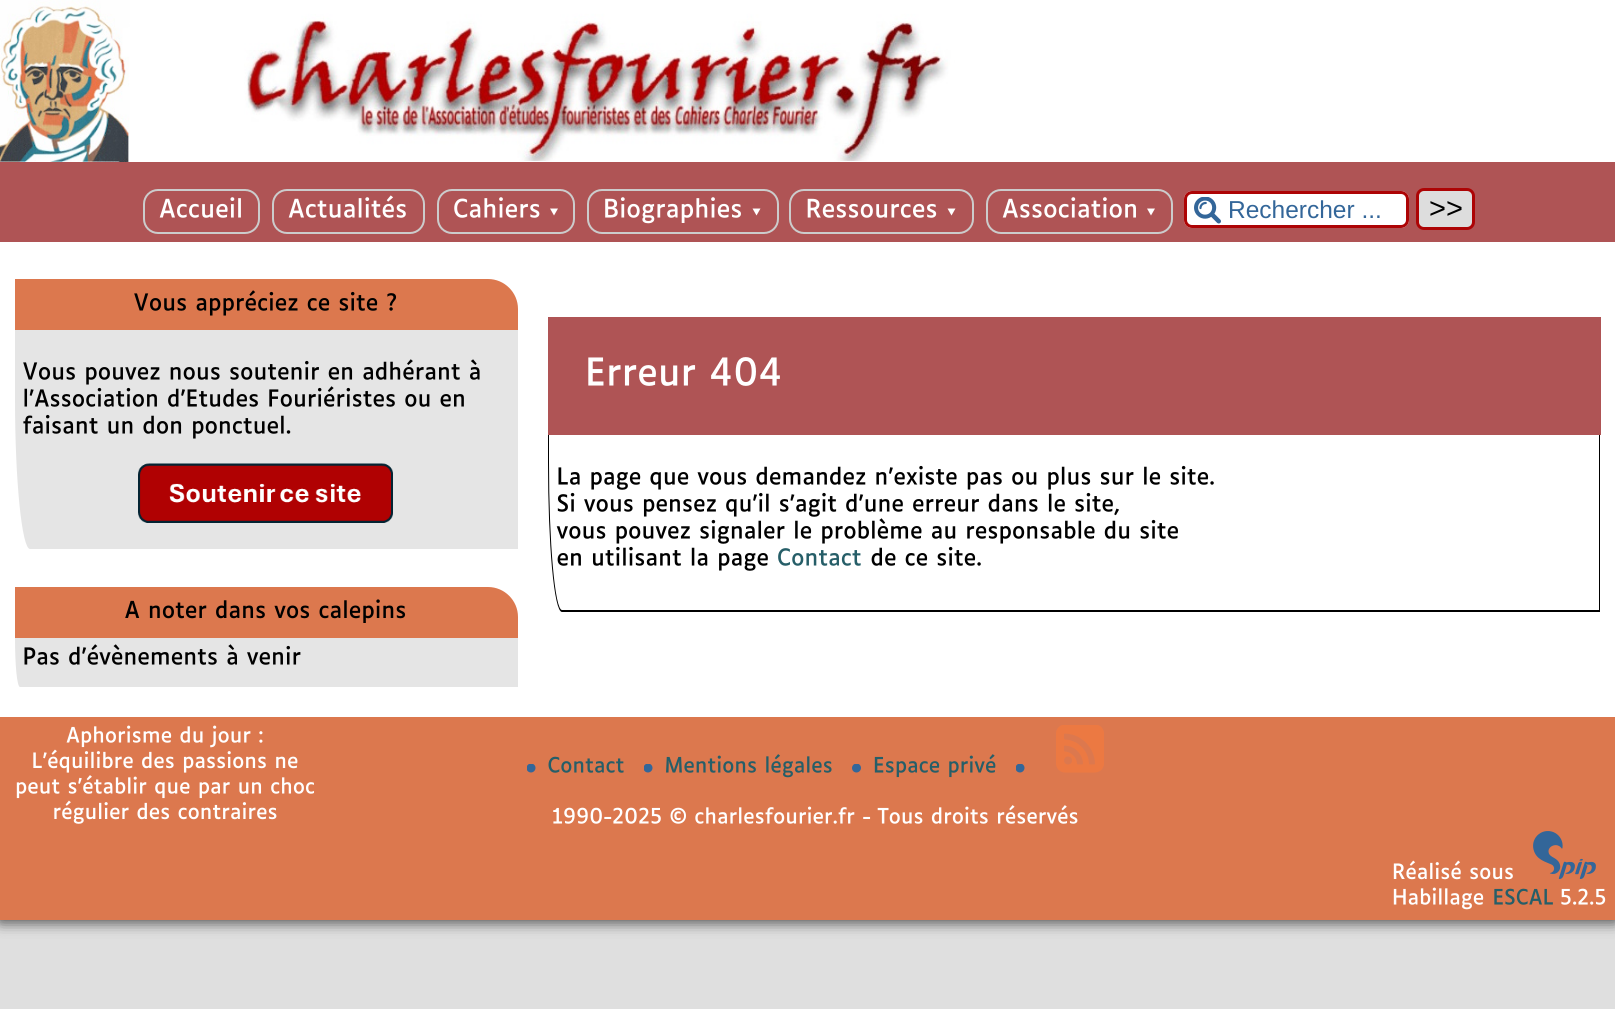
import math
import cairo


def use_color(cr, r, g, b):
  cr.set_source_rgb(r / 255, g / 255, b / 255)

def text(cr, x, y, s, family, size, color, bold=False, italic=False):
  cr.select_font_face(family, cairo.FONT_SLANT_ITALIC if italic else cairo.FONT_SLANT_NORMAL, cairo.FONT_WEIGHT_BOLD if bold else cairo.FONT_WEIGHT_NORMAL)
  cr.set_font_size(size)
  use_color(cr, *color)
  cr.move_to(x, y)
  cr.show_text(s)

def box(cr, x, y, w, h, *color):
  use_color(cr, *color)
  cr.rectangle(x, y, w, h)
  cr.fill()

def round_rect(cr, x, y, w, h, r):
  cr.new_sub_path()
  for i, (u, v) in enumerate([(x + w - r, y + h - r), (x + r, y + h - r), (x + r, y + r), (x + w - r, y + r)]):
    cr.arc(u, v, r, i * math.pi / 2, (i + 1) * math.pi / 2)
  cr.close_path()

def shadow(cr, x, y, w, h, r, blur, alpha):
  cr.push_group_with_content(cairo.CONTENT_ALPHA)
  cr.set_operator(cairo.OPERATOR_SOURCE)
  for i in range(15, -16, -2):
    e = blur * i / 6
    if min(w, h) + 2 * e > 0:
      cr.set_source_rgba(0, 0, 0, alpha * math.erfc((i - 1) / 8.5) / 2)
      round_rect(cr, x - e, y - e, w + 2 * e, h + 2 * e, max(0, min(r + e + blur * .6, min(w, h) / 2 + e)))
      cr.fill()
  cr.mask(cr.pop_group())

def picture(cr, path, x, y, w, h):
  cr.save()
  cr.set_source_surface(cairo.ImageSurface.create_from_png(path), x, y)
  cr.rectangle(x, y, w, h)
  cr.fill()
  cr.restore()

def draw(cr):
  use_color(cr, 223, 223, 223)
  cr.paint()
  use_color(cr, 97, 97, 97)
  shadow(cr, -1, 0, 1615, 920, 0, 7.5, 1)
  shadow(cr, 2, 0, 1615, 920, 0, 7.5, 1)
  box(cr, 0, 242, 1615, 475, 255, 255, 255)
  box(cr, 0, 162, 1615, 80, 175, 84, 85)
  picture(cr, "img_01.png", 0, 0, 1615, 162)
  round_rect(cr, 144, 190, 115, 43, 14)
  use_color(cr, 204, 204, 204)
  cr.stroke()
  picture(cr, "img_02.png", 159, 197, 82, 21)
  round_rect(cr, 273, 190, 151, 43, 14)
  cr.stroke()
  picture(cr, "img_03.png", 288, 195, 118, 23)
  round_rect(cr, 438, 190, 136, 43, 14)
  cr.stroke()
  picture(cr, "img_04.png", 454, 197, 86, 21)
  use_color(cr, 255, 255, 255)
  cr.new_path()
  cr.move_to(554, 215.5)
  cr.line_to(550, 208.5)
  cr.line_to(558, 208.5)
  cr.close_path()
  cr.fill()
  round_rect(cr, 588, 190, 190, 43, 14)
  use_color(cr, 204, 204, 204)
  cr.stroke()
  picture(cr, "img_05.png", 605, 197, 136, 27)
  use_color(cr, 255, 255, 255)
  cr.new_path()
  cr.move_to(756.5, 215.5)
  cr.line_to(752.5, 208.5)
  cr.line_to(760.5, 208.5)
  cr.close_path()
  cr.fill()
  round_rect(cr, 790, 190, 183, 43, 14)
  use_color(cr, 204, 204, 204)
  cr.stroke()
  picture(cr, "img_06.png", 807, 198, 130, 20)
  use_color(cr, 255, 255, 255)
  cr.new_path()
  cr.move_to(951.5, 215.5)
  cr.line_to(947.5, 208.5)
  cr.line_to(955.5, 208.5)
  cr.close_path()
  cr.fill()
  round_rect(cr, 987, 190, 185, 43, 14)
  use_color(cr, 204, 204, 204)
  cr.stroke()
  picture(cr, "img_07.png", 1002, 197, 134, 21)
  use_color(cr, 255, 255, 255)
  cr.new_path()
  cr.move_to(1151, 215.5)
  cr.line_to(1147, 208.5)
  cr.line_to(1155, 208.5)
  cr.close_path()
  cr.fill()
  round_rect(cr, 1184, 191, 225, 37, 8)
  cr.fill()
  picture(cr, "img_08.png", 1194, 197, 27, 27)
  round_rect(cr, 1185.5, 192.5, 222, 34, 6.5)
  use_color(cr, 173, 4, 5)
  cr.set_line_width(3)
  cr.stroke()
  use_color(cr, 221, 221, 221)
  round_rect(cr, 1417.5, 189.5, 56, 39, 6.5)
  cr.fill_preserve()
  use_color(cr, 173, 4, 5)
  cr.stroke()
  use_color(cr, 220, 120, 78)
  cr.new_path()
  cr.move_to(15, 279)
  cr.line_to(488, 279)
  cr.curve_to(504.5, 279, 518, 292.5, 518, 309)
  cr.line_to(518, 330)
  cr.line_to(15, 330)
  cr.close_path()
  cr.fill()
  picture(cr, "img_09.png", 134, 290, 263, 26)
  use_color(cr, 229, 229, 229)
  cr.new_path()
  cr.move_to(15, 330)
  cr.line_to(518, 330)
  cr.line_to(518, 549)
  cr.line_to(30, 549)
  cr.curve_to(22, 549, 15, 482, 15, 399)
  cr.close_path()
  cr.fill()
  picture(cr, "img_10.png", 23, 359, 457, 26)
  picture(cr, "img_11.png", 24, 386, 440, 21)
  picture(cr, "img_12.png", 23, 414, 268, 25)
  picture(cr, "img_13.png", 138, 463, 255, 60)
  use_color(cr, 220, 120, 78)
  cr.new_path()
  cr.move_to(15, 587)
  cr.line_to(488, 587)
  cr.curve_to(504.5, 587, 518, 600.5, 518, 617)
  cr.line_to(518, 638)
  cr.line_to(15, 638)
  cr.close_path()
  cr.fill()
  picture(cr, "img_14.png", 125, 599, 281, 24)
  use_color(cr, 229, 229, 229)
  cr.new_path()
  cr.move_to(15, 638)
  cr.line_to(518, 638)
  cr.line_to(518, 687)
  cr.line_to(20, 687)
  cr.curve_to(17, 687, 15, 665, 15, 638)
  cr.close_path()
  cr.fill()
  picture(cr, "img_15.png", 24, 644, 277, 21)
  box(cr, 548, 317, 1053, 118, 175, 84, 85)
  picture(cr, "img_16.png", 588, 357, 192, 29)
  use_color(cr, 0, 0, 0)
  cr.set_fill_rule(cairo.FILL_RULE_EVEN_ODD)
  cr.new_path()
  cr.move_to(548, 435)
  cr.line_to(1600, 435)
  cr.line_to(1600, 612)
  cr.line_to(562, 612)
  cr.curve_to(554, 612, 548, 545, 548, 462)
  cr.close_path()
  cr.move_to(549, 435)
  cr.line_to(1599, 435)
  cr.line_to(1599, 610)
  cr.line_to(562, 610)
  cr.curve_to(555, 610, 549, 544, 549, 462)
  cr.close_path()
  cr.fill()
  picture(cr, "img_17.png", 558, 465, 656, 25)
  picture(cr, "img_18.png", 557, 492, 562, 25)
  picture(cr, "img_19.png", 556, 518, 622, 26)
  picture(cr, "img_20.png", 557, 546, 211, 25)
  picture(cr, "img_21.png", 778, 548, 83, 18)
  picture(cr, "img_22.png", 871, 546, 110, 20)
  box(cr, 0, 717, 1615, 203, 220, 120, 78)
  picture(cr, "img_23.png", 66, 725, 197, 23)
  picture(cr, "img_24.png", 33, 749, 265, 24)
  picture(cr, "img_25.png", 16, 775, 299, 24)
  picture(cr, "img_26.png", 54, 800, 223, 24)
  picture(cr, "img_27.png", 527, 764, 9, 9)
  picture(cr, "img_28.png", 548, 756, 76, 17)
  picture(cr, "img_27.png", 644, 764, 9, 9)
  picture(cr, "img_29.png", 666, 754, 166, 24)
  picture(cr, "img_30.png", 852, 764, 9, 9)
  picture(cr, "img_31.png", 874, 754, 122, 24)
  picture(cr, "img_27.png", 1016, 764, 9, 9)
  picture(cr, "img_32.png", 1056, 725, 48, 48)
  picture(cr, "img_33.png", 553, 806, 318, 18)
  picture(cr, "img_34.png", 877, 805, 201, 19)
  picture(cr, "img_35.png", 1393, 860, 120, 20)
  picture(cr, "img_36.png", 1533, 831, 63, 48)
  picture(cr, "img_37.png", 1393, 887, 91, 23)
  picture(cr, "img_38.png", 1494, 888, 59, 17)
  picture(cr, "img_39.png", 1561, 888, 45, 17)
  text(cr, 1228, 218, "Rechercher ...", "Liberation Sans", 24.5, (51, 102, 153))
  text(cr, 1429, 218, ">>", "Liberation Sans", 29, (0, 0, 0))


surface = cairo.ImageSurface(cairo.FORMAT_RGB24, 1615, 1009)
cr = cairo.Context(surface)
options = cairo.FontOptions()
options.set_hint_metrics(cairo.HINT_METRICS_OFF)
options.set_hint_style(cairo.HINT_STYLE_NONE)
cr.set_font_options(options)
cr.set_miter_limit(4)
draw(cr)
surface.write_to_png("out.png")
